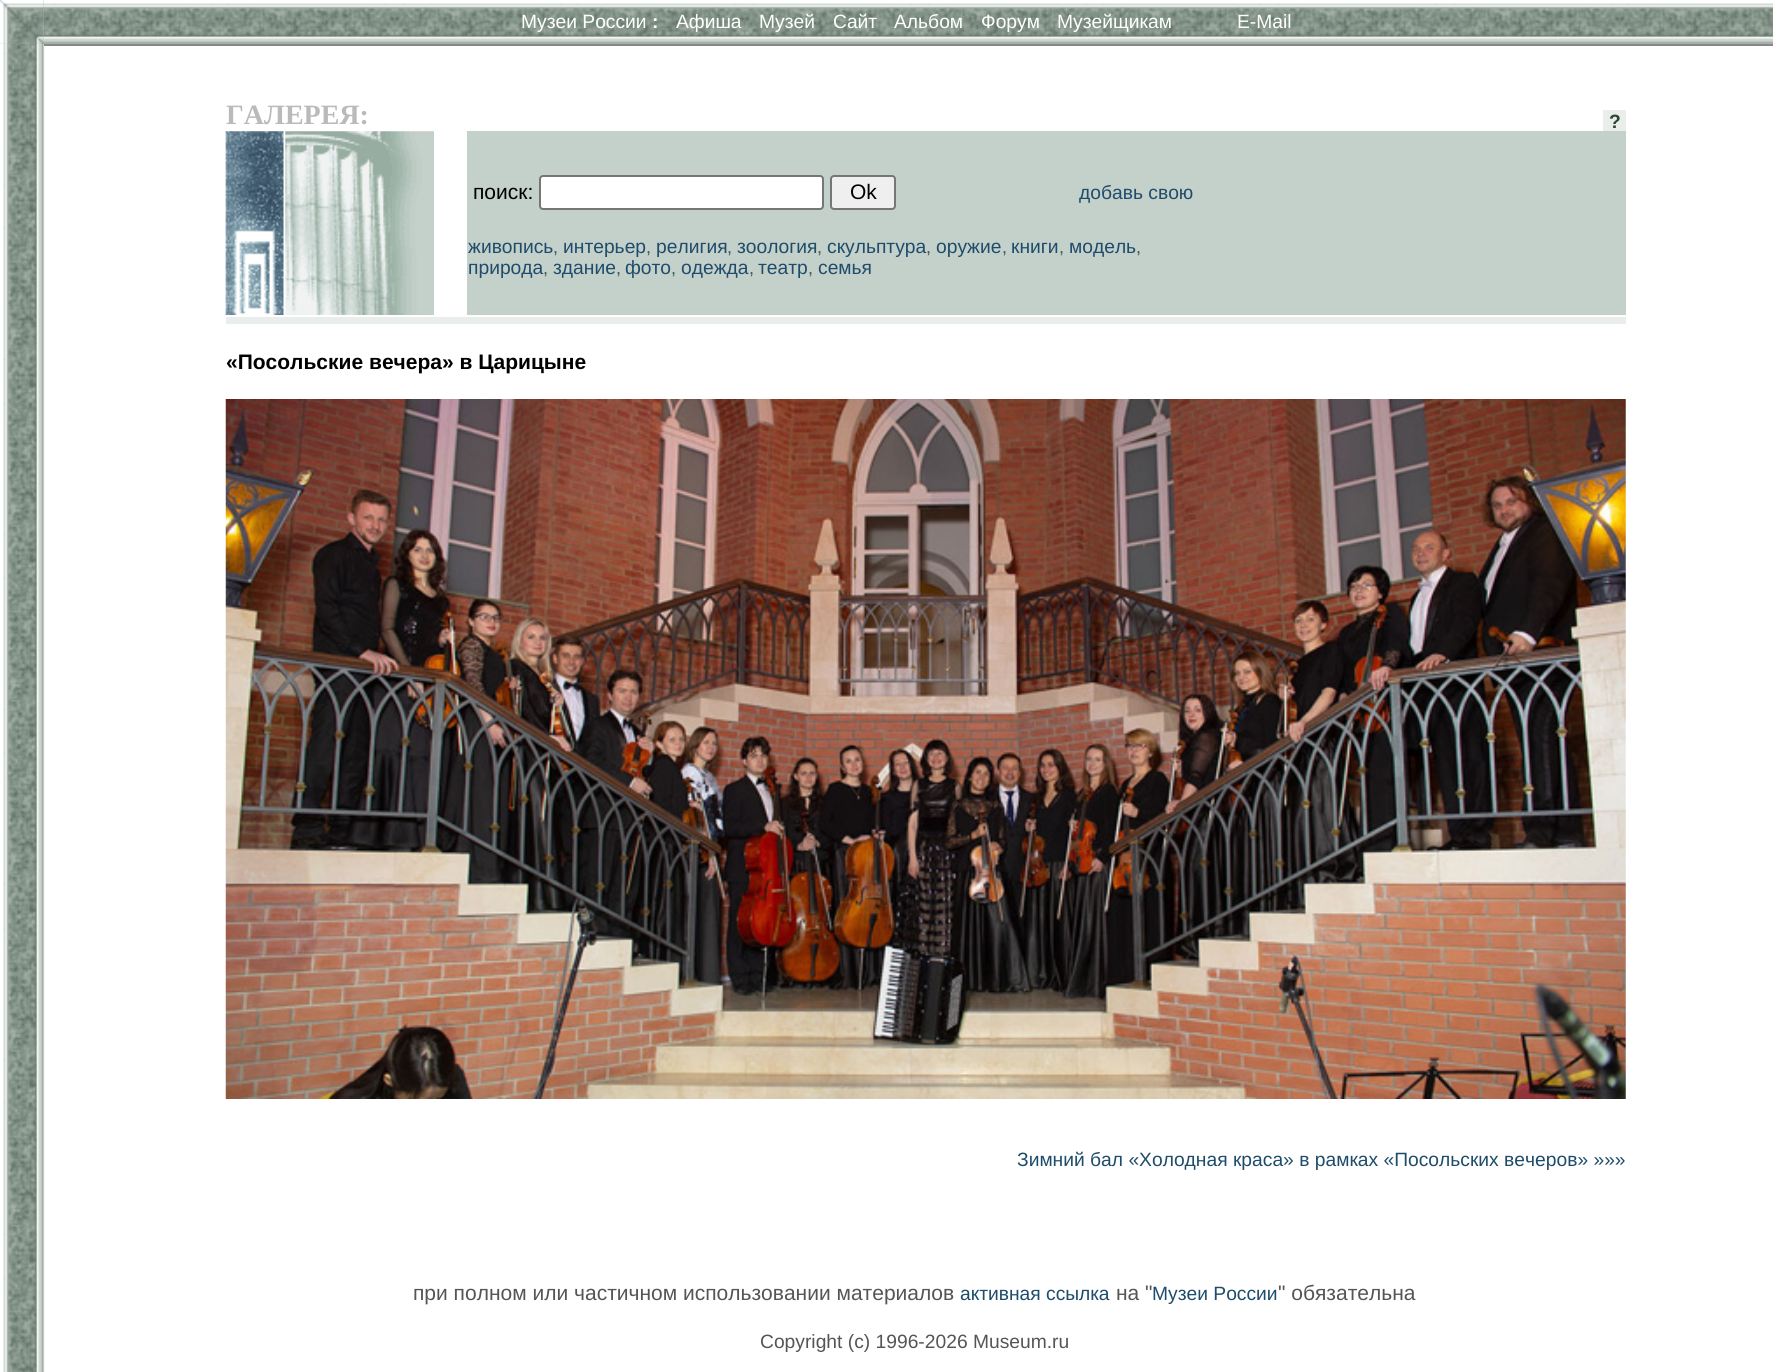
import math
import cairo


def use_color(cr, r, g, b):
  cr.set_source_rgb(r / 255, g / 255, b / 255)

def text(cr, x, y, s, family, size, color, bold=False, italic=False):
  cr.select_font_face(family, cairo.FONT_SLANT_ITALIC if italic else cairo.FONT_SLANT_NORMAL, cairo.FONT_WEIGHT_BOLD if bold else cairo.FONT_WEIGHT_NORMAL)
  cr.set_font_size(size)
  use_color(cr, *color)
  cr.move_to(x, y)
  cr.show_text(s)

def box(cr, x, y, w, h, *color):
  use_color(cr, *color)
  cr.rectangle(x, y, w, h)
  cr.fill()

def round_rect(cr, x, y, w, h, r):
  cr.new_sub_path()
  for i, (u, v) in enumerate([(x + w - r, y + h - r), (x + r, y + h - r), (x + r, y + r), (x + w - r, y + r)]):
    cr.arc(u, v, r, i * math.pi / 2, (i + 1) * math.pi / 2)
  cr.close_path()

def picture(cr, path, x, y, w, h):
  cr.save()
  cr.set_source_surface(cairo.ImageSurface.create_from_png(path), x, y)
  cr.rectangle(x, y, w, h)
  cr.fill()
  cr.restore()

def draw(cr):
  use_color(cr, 255, 255, 255)
  cr.paint()
  picture(cr, "img_01.png", 3, 0, 42, 1372)
  picture(cr, "img_02.png", 0, 0, 44, 44)
  picture(cr, "img_03.png", 43, 0, 1730, 44)
  box(cr, 44, 44, 1729, 2, 136, 136, 136)
  box(cr, 1603, 110, 23, 21, 233, 237, 235)
  picture(cr, "img_04.png", 225, 131, 59, 184)
  picture(cr, "img_05.png", 285, 131, 149, 184)
  box(cr, 467, 131, 1159, 184, 196, 208, 202)
  use_color(cr, 255, 255, 255)
  round_rect(cr, 540, 176, 283, 33, 3)
  cr.fill_preserve()
  use_color(cr, 118, 118, 118)
  cr.stroke()
  use_color(cr, 239, 239, 239)
  round_rect(cr, 831, 176, 64, 33, 3)
  cr.fill_preserve()
  use_color(cr, 118, 118, 118)
  cr.stroke()
  box(cr, 226, 317, 1400, 7, 233, 237, 235)
  picture(cr, "img_06.png", 225, 399, 1401, 700)
  text(cr, 521, 28, "Музеи России", "Liberation Sans", 19.25, (255, 255, 255))
  text(cr, 652, 28, ":", "Liberation Sans", 19.25, (255, 255, 255), bold=True)
  text(cr, 676, 28, "Афиша", "Liberation Sans", 19.25, (255, 255, 255))
  text(cr, 759, 28, "Музей", "Liberation Sans", 19.25, (255, 255, 255))
  text(cr, 833, 28, "Сайт", "Liberation Sans", 19.25, (255, 255, 255))
  text(cr, 894, 28, "Альбом", "Liberation Sans", 19.25, (255, 255, 255))
  text(cr, 981, 28, "Форум", "Liberation Sans", 19.25, (255, 255, 255))
  text(cr, 1057, 28, "Музейщикам", "Liberation Sans", 19.25, (255, 255, 255))
  text(cr, 1237, 28, "E-Mail", "Liberation Sans", 19.25, (255, 255, 255))
  text(cr, 226, 124, "ГАЛЕРЕЯ:", "Liberation Serif", 28, (186, 186, 186), bold=True)
  text(cr, 1609, 128, "?", "Liberation Sans", 19.25, (42, 73, 49), bold=True)
  text(cr, 473, 199, "поиск:", "Liberation Sans", 21, (0, 0, 0))
  text(cr, 850, 199, "Ok", "Liberation Sans", 21, (0, 0, 0))
  text(cr, 1079, 199, "добавь свою", "Liberation Sans", 19.25, (30, 76, 106))
  text(cr, 468, 253, "живопись", "Liberation Sans", 19.25, (30, 76, 106))
  text(cr, 553, 253, ",", "Liberation Sans", 18, (57, 89, 92))
  text(cr, 563, 253, "интерьер", "Liberation Sans", 19.25, (30, 76, 106))
  text(cr, 646, 253, ",", "Liberation Sans", 18, (57, 89, 92))
  text(cr, 656, 253, "религия", "Liberation Sans", 19.25, (30, 76, 106))
  text(cr, 727, 253, ",", "Liberation Sans", 18, (57, 89, 92))
  text(cr, 737, 253, "зоология", "Liberation Sans", 19.25, (30, 76, 106))
  text(cr, 817, 253, ",", "Liberation Sans", 18, (57, 89, 92))
  text(cr, 827, 253, "скульптура", "Liberation Sans", 19.25, (30, 76, 106))
  text(cr, 926, 253, ",", "Liberation Sans", 18, (57, 89, 92))
  text(cr, 936, 253, "оружие", "Liberation Sans", 19.25, (30, 76, 106))
  text(cr, 1002, 253, ",", "Liberation Sans", 18, (57, 89, 92))
  text(cr, 1011, 253, "книги", "Liberation Sans", 19.25, (30, 76, 106))
  text(cr, 1059, 253, ",", "Liberation Sans", 18, (57, 89, 92))
  text(cr, 1069, 253, "модель", "Liberation Sans", 19.25, (30, 76, 106))
  text(cr, 1136, 253, ",", "Liberation Sans", 18, (57, 89, 92))
  text(cr, 468, 274, "природа", "Liberation Sans", 19.25, (30, 76, 106))
  text(cr, 543, 274, ",", "Liberation Sans", 18, (57, 89, 92))
  text(cr, 553, 274, "здание", "Liberation Sans", 19.25, (30, 76, 106))
  text(cr, 616, 274, ",", "Liberation Sans", 18, (57, 89, 92))
  text(cr, 625, 274, "фото", "Liberation Sans", 19.25, (30, 76, 106))
  text(cr, 671, 274, ",", "Liberation Sans", 18, (57, 89, 92))
  text(cr, 681, 274, "одежда", "Liberation Sans", 19.25, (30, 76, 106))
  text(cr, 749, 274, ",", "Liberation Sans", 18, (57, 89, 92))
  text(cr, 758, 274, "театр", "Liberation Sans", 19.25, (30, 76, 106))
  text(cr, 808, 274, ",", "Liberation Sans", 18, (57, 89, 92))
  text(cr, 818, 274, "семья", "Liberation Sans", 19.25, (30, 76, 106))
  text(cr, 226, 369, "«Посольские вечера» в Царицыне", "Liberation Sans", 21, (0, 0, 0), bold=True)
  text(cr, 1017, 1166, "Зимний бал «Холодная краса» в рамках «Посольских вечеров» »»»", "Liberation Sans", 19.25, (30, 76, 106))
  text(cr, 413, 1300, "при полном или частичном использовании материалов", "Liberation Sans", 21, (85, 85, 85))
  text(cr, 960, 1300, "активная ссылка", "Liberation Sans", 19.25, (30, 76, 106))
  text(cr, 1116, 1300, "на \"", "Liberation Sans", 21, (85, 85, 85))
  text(cr, 1152, 1300, "Музеи России", "Liberation Sans", 19.25, (30, 76, 106))
  text(cr, 1278, 1300, "\" обязательна", "Liberation Sans", 21, (85, 85, 85))
  text(cr, 760, 1348, "Copyright (c) 1996-2026 Museum.ru", "Liberation Sans", 19.25, (85, 85, 85))


surface = cairo.ImageSurface(cairo.FORMAT_RGB24, 1773, 1372)
cr = cairo.Context(surface)
options = cairo.FontOptions()
options.set_hint_metrics(cairo.HINT_METRICS_OFF)
options.set_hint_style(cairo.HINT_STYLE_NONE)
cr.set_font_options(options)
cr.set_miter_limit(4)
draw(cr)
surface.write_to_png("out.png")
